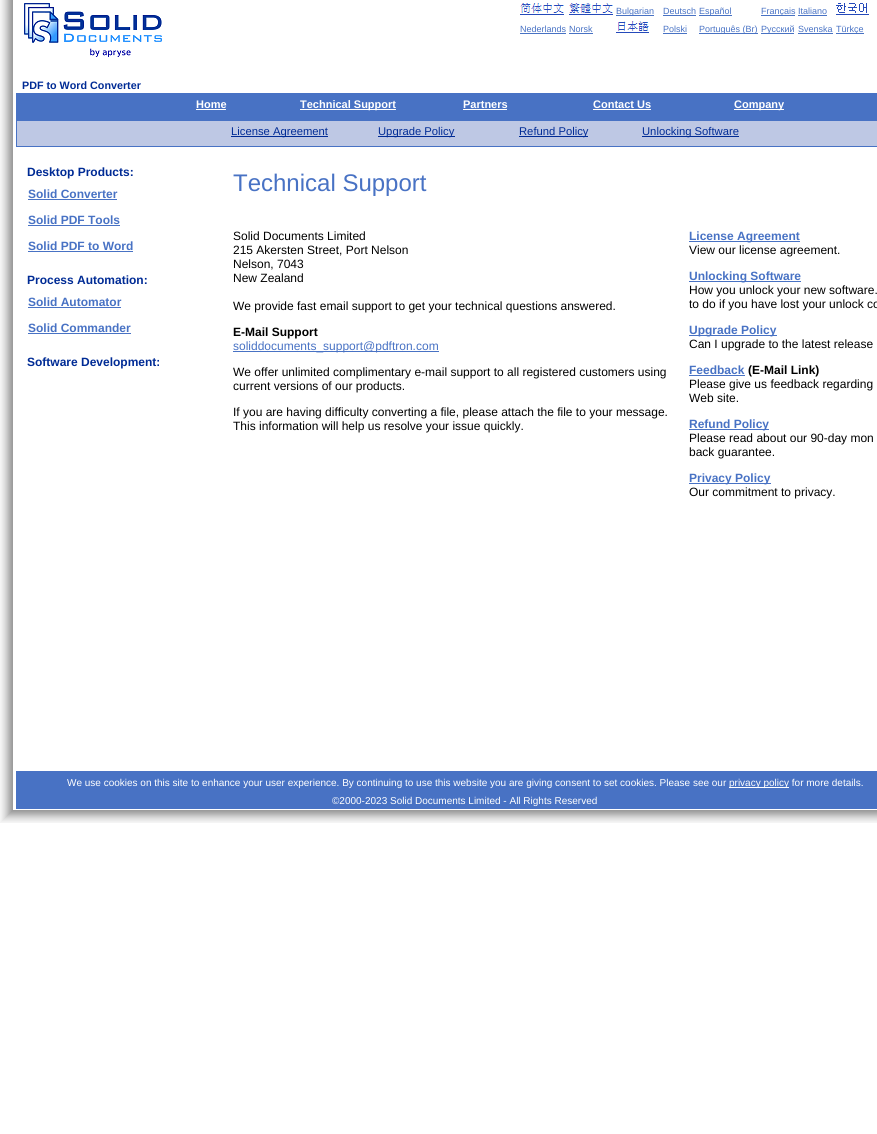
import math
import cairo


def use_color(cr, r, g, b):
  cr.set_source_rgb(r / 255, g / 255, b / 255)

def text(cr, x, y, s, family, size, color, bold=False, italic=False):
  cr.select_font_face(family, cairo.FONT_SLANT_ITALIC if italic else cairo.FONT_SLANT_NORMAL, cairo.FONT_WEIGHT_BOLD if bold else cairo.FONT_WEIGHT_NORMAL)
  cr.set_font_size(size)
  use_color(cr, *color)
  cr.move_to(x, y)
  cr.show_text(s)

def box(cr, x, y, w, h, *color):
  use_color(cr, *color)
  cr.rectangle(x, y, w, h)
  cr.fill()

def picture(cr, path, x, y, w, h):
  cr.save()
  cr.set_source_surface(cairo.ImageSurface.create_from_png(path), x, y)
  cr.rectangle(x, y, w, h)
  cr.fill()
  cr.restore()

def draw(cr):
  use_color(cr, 255, 255, 255)
  cr.paint()
  box(cr, 0, 822, 877, 1, 244, 244, 244)
  box(cr, 0, 0, 1, 823, 244, 244, 244)
  box(cr, 1, 821, 876, 1, 240, 240, 240)
  box(cr, 1, 0, 1, 822, 240, 240, 240)
  box(cr, 2, 820, 875, 1, 234, 234, 234)
  box(cr, 2, 0, 1, 821, 234, 234, 234)
  box(cr, 3, 819, 874, 1, 228, 228, 228)
  box(cr, 3, 0, 1, 820, 228, 228, 228)
  box(cr, 4, 818, 873, 1, 222, 222, 222)
  box(cr, 4, 0, 1, 819, 222, 222, 222)
  box(cr, 5, 817, 872, 1, 214, 214, 214)
  box(cr, 5, 0, 1, 818, 214, 214, 214)
  box(cr, 6, 816, 871, 1, 206, 206, 206)
  box(cr, 6, 0, 1, 817, 206, 206, 206)
  box(cr, 7, 815, 870, 1, 197, 197, 197)
  box(cr, 7, 0, 1, 816, 197, 197, 197)
  box(cr, 8, 814, 869, 1, 187, 187, 187)
  box(cr, 8, 0, 1, 815, 187, 187, 187)
  box(cr, 9, 813, 868, 1, 178, 178, 178)
  box(cr, 9, 0, 1, 814, 178, 178, 178)
  box(cr, 10, 812, 867, 1, 170, 170, 170)
  box(cr, 10, 0, 1, 813, 170, 170, 170)
  box(cr, 11, 811, 866, 1, 162, 162, 162)
  box(cr, 11, 0, 1, 812, 162, 162, 162)
  box(cr, 12, 810, 865, 1, 156, 156, 156)
  box(cr, 12, 0, 1, 811, 156, 156, 156)
  picture(cr, "img_01.png", 520, 3, 44, 12)
  picture(cr, "img_02.png", 569, 3, 44, 12)
  box(cr, 616, 15, 38, 1, 72, 114, 196)
  box(cr, 663, 15, 33, 1, 72, 114, 196)
  box(cr, 699, 15, 33, 1, 72, 114, 196)
  box(cr, 761, 15, 34, 1, 72, 114, 196)
  box(cr, 798, 15, 29, 1, 72, 114, 196)
  picture(cr, "img_03.png", 836, 3, 33, 12)
  box(cr, 520, 33, 46, 1, 72, 114, 196)
  box(cr, 569, 33, 24, 1, 72, 114, 196)
  picture(cr, "img_04.png", 616, 21, 33, 12)
  box(cr, 663, 33, 24, 1, 72, 114, 196)
  box(cr, 699, 33, 59, 1, 72, 114, 196)
  box(cr, 761, 33, 33, 1, 72, 114, 196)
  box(cr, 798, 33, 35, 1, 72, 114, 196)
  box(cr, 836, 33, 28, 1, 72, 114, 196)
  picture(cr, "img_05.png", 24, 3, 138, 54)
  box(cr, 16, 93, 861, 27, 72, 114, 196)
  box(cr, 196, 109, 30, 1, 255, 255, 255)
  box(cr, 300, 109, 96, 1, 255, 255, 255)
  box(cr, 463, 109, 44, 1, 255, 255, 255)
  box(cr, 593, 109, 58, 1, 255, 255, 255)
  box(cr, 734, 109, 50, 1, 255, 255, 255)
  use_color(cr, 190, 200, 228)
  cr.rectangle(16.5, 120.5, 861, 26)
  cr.fill_preserve()
  use_color(cr, 72, 114, 196)
  cr.set_line_width(1)
  cr.stroke()
  box(cr, 231, 136, 97, 1, 0, 43, 149)
  box(cr, 378, 136, 77, 1, 0, 43, 149)
  box(cr, 519, 136, 69, 1, 0, 43, 149)
  box(cr, 642, 136, 97, 1, 0, 43, 149)
  box(cr, 28, 199, 89, 1, 72, 114, 196)
  box(cr, 28, 225, 92, 1, 72, 114, 196)
  box(cr, 28, 251, 105, 1, 72, 114, 196)
  box(cr, 28, 307, 93, 1, 72, 114, 196)
  box(cr, 28, 333, 103, 1, 72, 114, 196)
  box(cr, 233, 351, 206, 1, 72, 114, 196)
  box(cr, 689, 241, 111, 1, 72, 114, 196)
  box(cr, 689, 281, 112, 1, 72, 114, 196)
  box(cr, 689, 335, 88, 1, 72, 114, 196)
  box(cr, 689, 375, 56, 1, 72, 114, 196)
  box(cr, 689, 429, 80, 1, 72, 114, 196)
  box(cr, 689, 483, 82, 1, 72, 114, 196)
  box(cr, 16, 771, 861, 38, 72, 114, 196)
  box(cr, 729, 787, 60, 1, 255, 255, 255)
  text(cr, 616, 14, "Bulgarian", "Liberation Sans", 9, (72, 114, 196))
  text(cr, 663, 14, "Deutsch", "Liberation Sans", 9, (72, 114, 196))
  text(cr, 699, 14, "Español", "Liberation Sans", 9, (72, 114, 196))
  text(cr, 761, 14, "Français", "Liberation Sans", 9, (72, 114, 196))
  text(cr, 798, 14, "Italiano", "Liberation Sans", 9, (72, 114, 196))
  text(cr, 520, 32, "Nederlands", "Liberation Sans", 9, (72, 114, 196))
  text(cr, 569, 32, "Norsk", "Liberation Sans", 9, (72, 114, 196))
  text(cr, 663, 32, "Polski", "Liberation Sans", 9, (72, 114, 196))
  text(cr, 699, 32, "Português (Br)", "Liberation Sans", 9, (72, 114, 196))
  text(cr, 761, 32, "Русский", "Liberation Sans", 9, (72, 114, 196))
  text(cr, 798, 32, "Svenska", "Liberation Sans", 9, (72, 114, 196))
  text(cr, 836, 32, "Türkçe", "Liberation Sans", 9, (72, 114, 196))
  text(cr, 22, 89, "PDF to Word Converter", "Liberation Sans", 10.75, (0, 43, 149), bold=True)
  text(cr, 196, 108, "Home", "Liberation Sans", 11, (255, 255, 255), bold=True)
  text(cr, 300, 108, "Technical Support", "Liberation Sans", 11, (255, 255, 255), bold=True)
  text(cr, 463, 108, "Partners", "Liberation Sans", 11, (255, 255, 255), bold=True)
  text(cr, 593, 108, "Contact Us", "Liberation Sans", 11, (255, 255, 255), bold=True)
  text(cr, 734, 108, "Company", "Liberation Sans", 11, (255, 255, 255), bold=True)
  text(cr, 231, 135, "License Agreement", "Liberation Sans", 11.25, (0, 43, 149))
  text(cr, 378, 135, "Upgrade Policy", "Liberation Sans", 11.25, (0, 43, 149))
  text(cr, 519, 135, "Refund Policy", "Liberation Sans", 11.25, (0, 43, 149))
  text(cr, 642, 135, "Unlocking Software", "Liberation Sans", 11.25, (0, 43, 149))
  text(cr, 27, 176, "Desktop Products:", "Liberation Sans", 12, (0, 43, 149), bold=True)
  text(cr, 28, 198, "Solid Converter", "Liberation Sans", 12, (72, 114, 196), bold=True)
  text(cr, 28, 224, "Solid PDF Tools", "Liberation Sans", 12, (72, 114, 196), bold=True)
  text(cr, 28, 250, "Solid PDF to Word", "Liberation Sans", 12, (72, 114, 196), bold=True)
  text(cr, 27, 284, "Process Automation:", "Liberation Sans", 12, (0, 43, 149), bold=True)
  text(cr, 28, 306, "Solid Automator", "Liberation Sans", 12, (72, 114, 196), bold=True)
  text(cr, 28, 332, "Solid Commander", "Liberation Sans", 12, (72, 114, 196), bold=True)
  text(cr, 27, 366, "Software Development:", "Liberation Sans", 12, (0, 43, 149), bold=True)
  text(cr, 233, 191, "Technical Support", "Liberation Sans", 24, (72, 114, 196))
  text(cr, 233, 240, "Solid Documents Limited", "Liberation Sans", 12, (0, 0, 0))
  text(cr, 233, 254, "215 Akersten Street, Port Nelson", "Liberation Sans", 12, (0, 0, 0))
  text(cr, 233, 268, "Nelson, 7043", "Liberation Sans", 12, (0, 0, 0))
  text(cr, 233, 282, "New Zealand", "Liberation Sans", 12, (0, 0, 0))
  text(cr, 233, 310, "We provide fast email support to get your technical questions answered.", "Liberation Sans", 12, (0, 0, 0))
  text(cr, 233, 336, "E-Mail Support", "Liberation Sans", 12, (0, 0, 0), bold=True)
  text(cr, 233, 350, "soliddocuments_support@pdftron.com", "Liberation Sans", 12, (72, 114, 196))
  text(cr, 233, 376, "We offer unlimited complimentary e-mail support to all registered customers using", "Liberation Sans", 12, (0, 0, 0))
  text(cr, 233, 390, "current versions of our products.", "Liberation Sans", 12, (0, 0, 0))
  text(cr, 233, 416, "If you are having difficulty converting a file, please attach the file to your message.", "Liberation Sans", 12, (0, 0, 0))
  text(cr, 233, 430, "This information will help us resolve your issue quickly.", "Liberation Sans", 12, (0, 0, 0))
  text(cr, 689, 240, "License Agreement", "Liberation Sans", 12, (72, 114, 196), bold=True)
  text(cr, 689, 254, "View our license agreement.", "Liberation Sans", 12, (0, 0, 0))
  text(cr, 689, 280, "Unlocking Software", "Liberation Sans", 12, (72, 114, 196), bold=True)
  text(cr, 689, 294, "How you unlock your new software.", "Liberation Sans", 12, (0, 0, 0))
  text(cr, 689, 308, "to do if you have lost your unlock co", "Liberation Sans", 12, (0, 0, 0))
  text(cr, 689, 334, "Upgrade Policy", "Liberation Sans", 12, (72, 114, 196), bold=True)
  text(cr, 689, 348, "Can I upgrade to the latest release", "Liberation Sans", 12, (0, 0, 0))
  text(cr, 689, 374, "Feedback", "Liberation Sans", 12, (72, 114, 196), bold=True)
  text(cr, 748, 374, "(E-Mail Link)", "Liberation Sans", 12, (0, 0, 0), bold=True)
  text(cr, 689, 388, "Please give us feedback regarding", "Liberation Sans", 12, (0, 0, 0))
  text(cr, 689, 402, "Web site.", "Liberation Sans", 12, (0, 0, 0))
  text(cr, 689, 428, "Refund Policy", "Liberation Sans", 12, (72, 114, 196), bold=True)
  text(cr, 689, 442, "Please read about our 90-day mon", "Liberation Sans", 12, (0, 0, 0))
  text(cr, 689, 456, "back guarantee.", "Liberation Sans", 12, (0, 0, 0))
  text(cr, 689, 482, "Privacy Policy", "Liberation Sans", 12, (72, 114, 196), bold=True)
  text(cr, 689, 496, "Our commitment to privacy.", "Liberation Sans", 12, (0, 0, 0))
  text(cr, 67, 786, "We use cookies on this site to enhance your user experience. By continuing to use this website you are giving consent to set cookies. Please see our", "Liberation Sans", 10, (255, 255, 255))
  text(cr, 729, 786, "privacy policy for more details.", "Liberation Sans", 10, (255, 255, 255))
  text(cr, 332, 804, "©2000-2023 Solid Documents Limited - All Rights Reserved", "Liberation Sans", 10, (255, 255, 255))


surface = cairo.ImageSurface(cairo.FORMAT_RGB24, 877, 1134)
cr = cairo.Context(surface)
options = cairo.FontOptions()
options.set_hint_metrics(cairo.HINT_METRICS_OFF)
options.set_hint_style(cairo.HINT_STYLE_NONE)
cr.set_font_options(options)
cr.set_miter_limit(4)
draw(cr)
surface.write_to_png("out.png")
